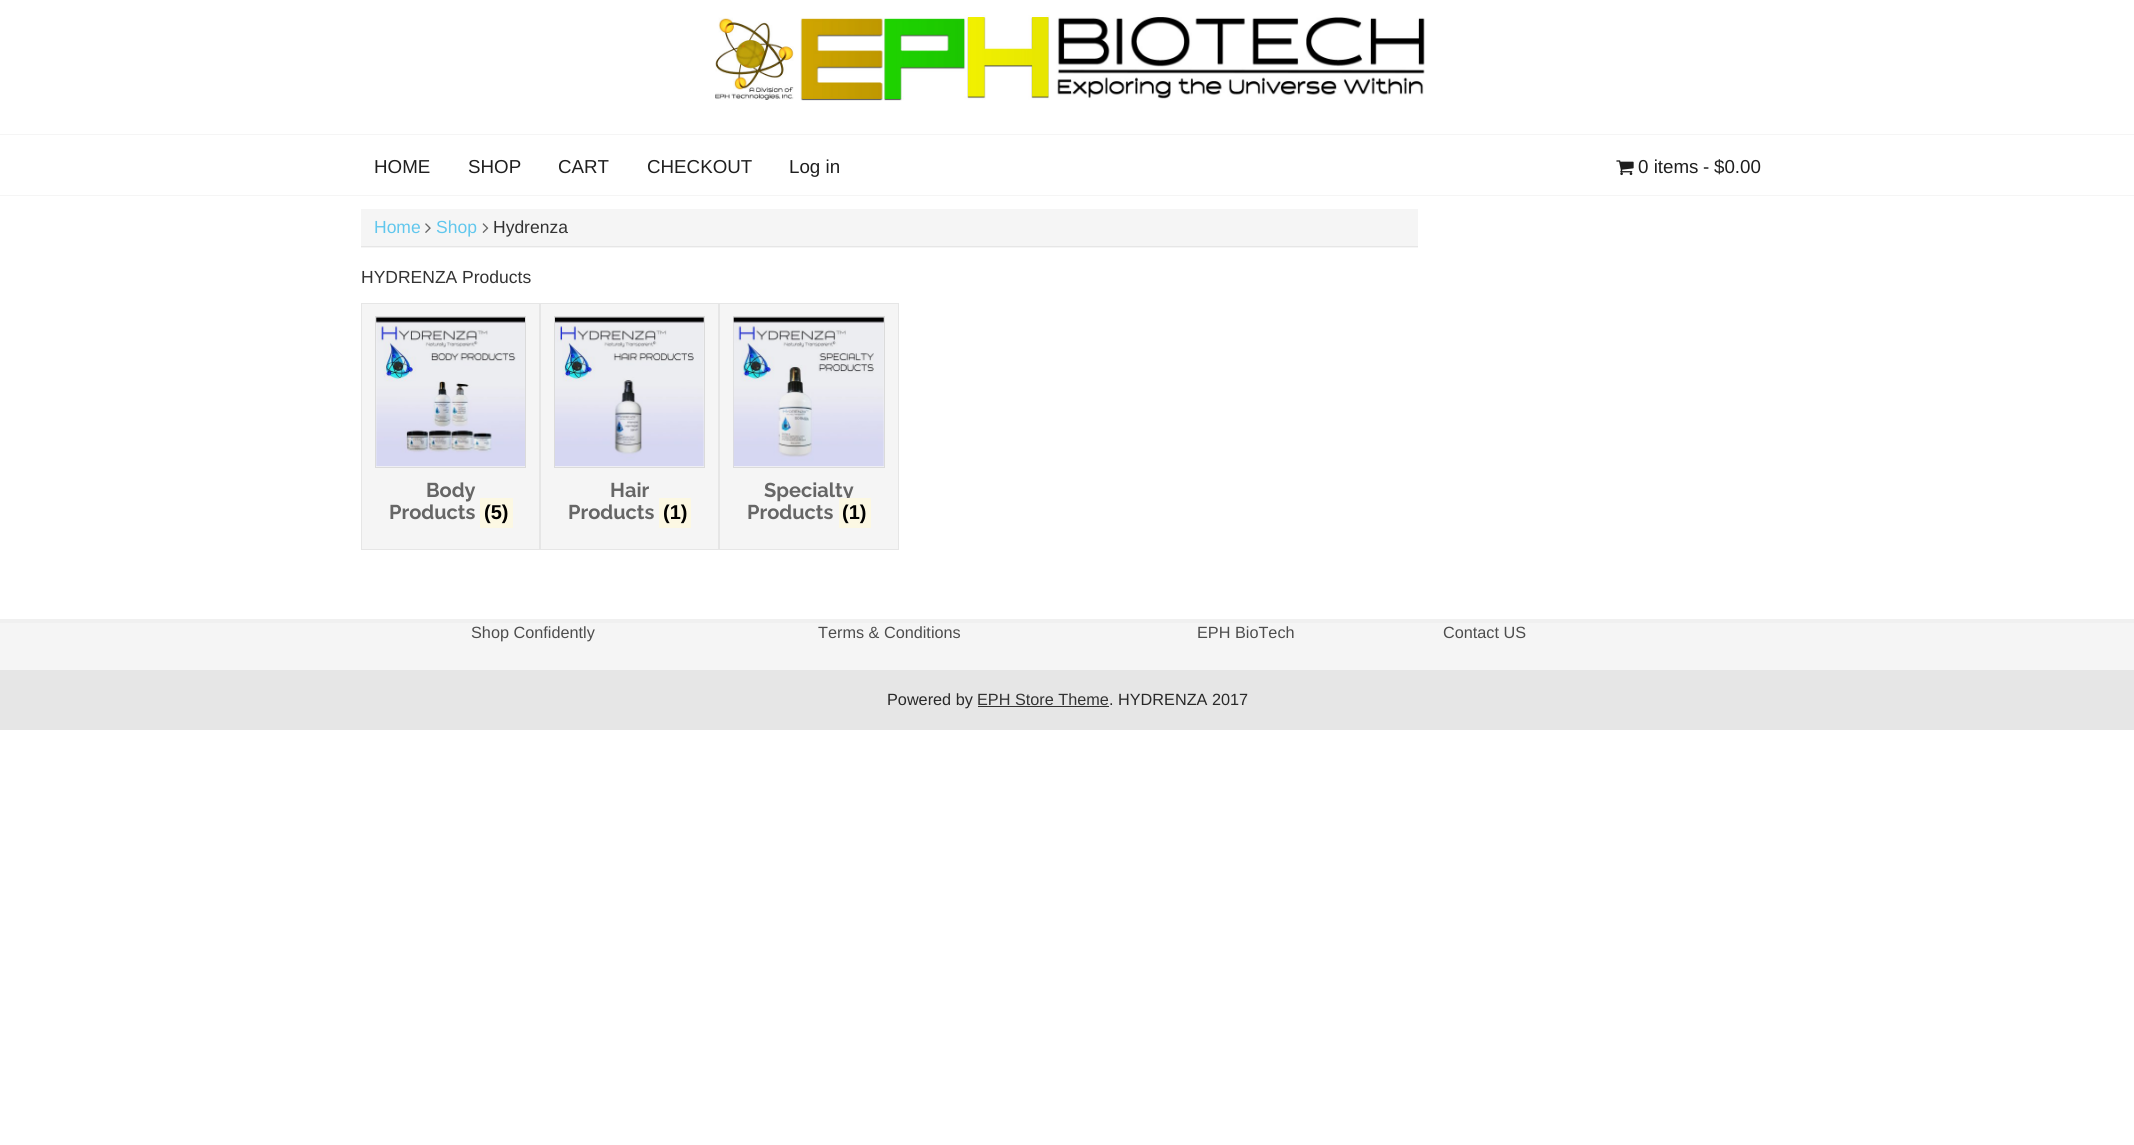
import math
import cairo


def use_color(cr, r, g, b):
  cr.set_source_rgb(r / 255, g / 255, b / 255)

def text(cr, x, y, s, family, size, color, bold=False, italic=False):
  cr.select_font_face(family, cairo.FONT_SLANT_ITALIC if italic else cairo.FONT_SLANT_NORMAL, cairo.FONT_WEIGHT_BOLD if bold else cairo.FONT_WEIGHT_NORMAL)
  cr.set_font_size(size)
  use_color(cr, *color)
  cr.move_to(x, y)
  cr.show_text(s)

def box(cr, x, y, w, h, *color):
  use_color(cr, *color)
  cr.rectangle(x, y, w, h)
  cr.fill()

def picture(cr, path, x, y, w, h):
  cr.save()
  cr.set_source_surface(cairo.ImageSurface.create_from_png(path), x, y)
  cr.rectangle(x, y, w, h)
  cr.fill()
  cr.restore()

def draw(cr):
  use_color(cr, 255, 255, 255)
  cr.paint()
  picture(cr, "img_01.png", 715, 15, 710, 86)
  box(cr, 0, 134, 2134, 1, 245, 245, 245)
  box(cr, 0, 195, 2134, 1, 245, 245, 245)
  picture(cr, "img_02.png", 1616, 160, 18, 16)
  box(cr, 361, 209, 1057, 39, 245, 245, 245)
  box(cr, 361, 246, 1057, 1, 230, 230, 230)
  picture(cr, "img_03.png", 425, 223, 6, 10)
  picture(cr, "img_04.png", 482, 223, 7, 10)
  use_color(cr, 245, 245, 245)
  cr.rectangle(361.5, 303.5, 178, 246)
  cr.fill_preserve()
  use_color(cr, 230, 230, 230)
  cr.set_line_width(1)
  cr.stroke()
  cr.rectangle(375.5, 316.5, 150, 151)
  use_color(cr, 219, 219, 219)
  cr.stroke()
  picture(cr, "img_05.png", 376, 317, 149, 150)
  box(cr, 480, 498, 33, 30, 252, 248, 227)
  use_color(cr, 245, 245, 245)
  cr.rectangle(540.5, 303.5, 178, 246)
  cr.fill_preserve()
  use_color(cr, 230, 230, 230)
  cr.stroke()
  cr.rectangle(554.5, 316.5, 150, 151)
  use_color(cr, 219, 219, 219)
  cr.stroke()
  picture(cr, "img_06.png", 555, 317, 149, 150)
  box(cr, 659, 498, 32, 30, 252, 248, 227)
  use_color(cr, 245, 245, 245)
  cr.rectangle(719.5, 303.5, 179, 246)
  cr.fill_preserve()
  use_color(cr, 230, 230, 230)
  cr.stroke()
  cr.rectangle(733.5, 316.5, 151, 151)
  use_color(cr, 219, 219, 219)
  cr.stroke()
  picture(cr, "img_07.png", 733, 317, 151, 150)
  box(cr, 0, 623, 2134, 47, 245, 245, 245)
  box(cr, 0, 619, 2134, 4, 240, 240, 240)
  box(cr, 0, 670, 2134, 60, 230, 230, 230)
  box(cr, 978, 706, 131, 1, 51, 51, 51)
  text(cr, 374, 173, "HOME", "Liberation Sans", 18.75, (31, 31, 31))
  text(cr, 468, 173, "SHOP", "Liberation Sans", 18.75, (31, 31, 31))
  text(cr, 558, 173, "CART", "Liberation Sans", 18.75, (31, 31, 31))
  text(cr, 647, 173, "CHECKOUT", "Liberation Sans", 18.75, (31, 31, 31))
  text(cr, 789, 173, "Log in", "Liberation Sans", 18.75, (31, 31, 31))
  text(cr, 1638, 173, "0 items", "Liberation Sans", 18.75, (31, 31, 31))
  text(cr, 1703, 173, "-", "Liberation Sans", 18.75, (31, 31, 31))
  text(cr, 1714, 173, "$0.00", "Liberation Sans", 18.75, (31, 31, 31))
  text(cr, 374, 233, "Home", "Liberation Sans", 17.5, (97, 199, 237))
  text(cr, 436, 233, "Shop", "Liberation Sans", 17.5, (97, 199, 237))
  text(cr, 493, 233, "Hydrenza", "Liberation Sans", 17.5, (51, 51, 51))
  text(cr, 361, 283, "HYDRENZA Products", "Liberation Sans", 17.5, (51, 51, 51))
  text(cr, 426, 497, "Body", "Raleway", 20, (102, 102, 102), bold=True)
  text(cr, 389, 519, "Products", "Raleway", 20, (102, 102, 102), bold=True)
  text(cr, 484, 519, "(5)", "Liberation Sans", 20, (0, 0, 0), bold=True)
  text(cr, 610, 497, "Hair", "Raleway", 20, (102, 102, 102), bold=True)
  text(cr, 568, 519, "Products", "Raleway", 20, (102, 102, 102), bold=True)
  text(cr, 663, 519, "(1)", "Liberation Sans", 20, (0, 0, 0), bold=True)
  text(cr, 764, 497, "Specialty", "Raleway", 20, (102, 102, 102), bold=True)
  text(cr, 747, 519, "Products", "Raleway", 20, (102, 102, 102), bold=True)
  box(cr, 839, 498, 32, 30, 252, 248, 227)
  text(cr, 842, 519, "(1)", "Liberation Sans", 20, (0, 0, 0), bold=True)
  text(cr, 471, 638, "Shop Confidently", "Liberation Sans", 16.25, (77, 77, 77))
  text(cr, 818, 638, "Terms & Conditions", "Liberation Sans", 16.25, (77, 77, 77))
  text(cr, 1197, 638, "EPH BioTech", "Liberation Sans", 16.25, (77, 77, 77))
  text(cr, 1443, 638, "Contact US", "Liberation Sans", 16.25, (77, 77, 77))
  text(cr, 887, 705, "Powered by", "Liberation Sans", 16.25, (41, 41, 41))
  text(cr, 977, 705, "EPH Store Theme", "Liberation Sans", 16.25, (51, 51, 51))
  text(cr, 1109, 705, ". HYDRENZA 2017", "Liberation Sans", 16.25, (41, 41, 41))


surface = cairo.ImageSurface(cairo.FORMAT_RGB24, 2134, 1145)
cr = cairo.Context(surface)
options = cairo.FontOptions()
options.set_hint_metrics(cairo.HINT_METRICS_OFF)
options.set_hint_style(cairo.HINT_STYLE_NONE)
cr.set_font_options(options)
cr.set_miter_limit(4)
draw(cr)
surface.write_to_png("out.png")
